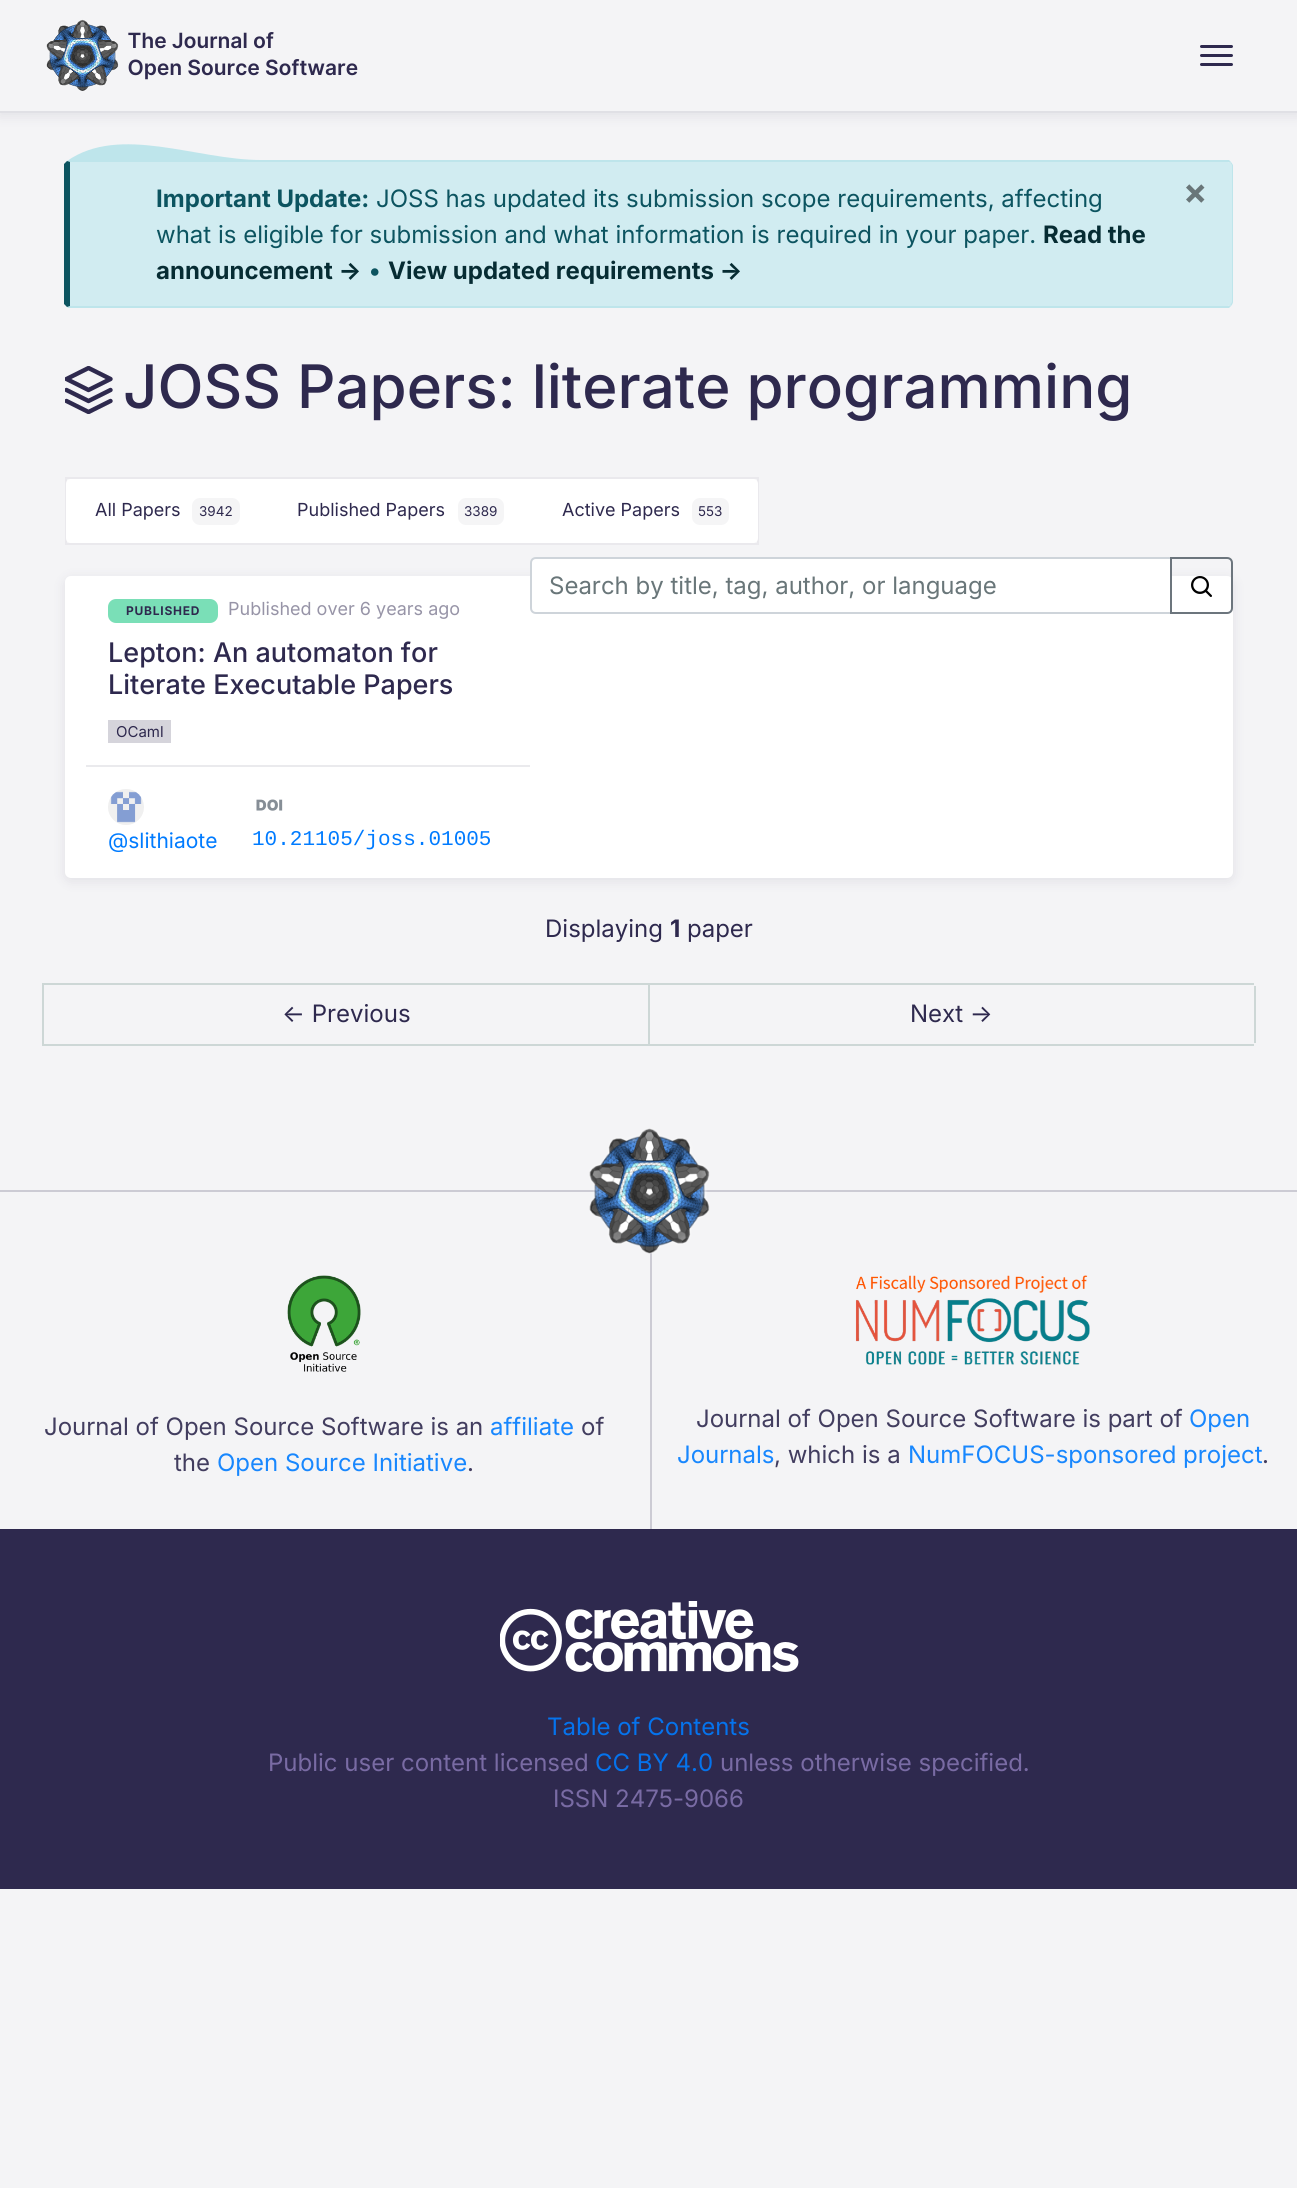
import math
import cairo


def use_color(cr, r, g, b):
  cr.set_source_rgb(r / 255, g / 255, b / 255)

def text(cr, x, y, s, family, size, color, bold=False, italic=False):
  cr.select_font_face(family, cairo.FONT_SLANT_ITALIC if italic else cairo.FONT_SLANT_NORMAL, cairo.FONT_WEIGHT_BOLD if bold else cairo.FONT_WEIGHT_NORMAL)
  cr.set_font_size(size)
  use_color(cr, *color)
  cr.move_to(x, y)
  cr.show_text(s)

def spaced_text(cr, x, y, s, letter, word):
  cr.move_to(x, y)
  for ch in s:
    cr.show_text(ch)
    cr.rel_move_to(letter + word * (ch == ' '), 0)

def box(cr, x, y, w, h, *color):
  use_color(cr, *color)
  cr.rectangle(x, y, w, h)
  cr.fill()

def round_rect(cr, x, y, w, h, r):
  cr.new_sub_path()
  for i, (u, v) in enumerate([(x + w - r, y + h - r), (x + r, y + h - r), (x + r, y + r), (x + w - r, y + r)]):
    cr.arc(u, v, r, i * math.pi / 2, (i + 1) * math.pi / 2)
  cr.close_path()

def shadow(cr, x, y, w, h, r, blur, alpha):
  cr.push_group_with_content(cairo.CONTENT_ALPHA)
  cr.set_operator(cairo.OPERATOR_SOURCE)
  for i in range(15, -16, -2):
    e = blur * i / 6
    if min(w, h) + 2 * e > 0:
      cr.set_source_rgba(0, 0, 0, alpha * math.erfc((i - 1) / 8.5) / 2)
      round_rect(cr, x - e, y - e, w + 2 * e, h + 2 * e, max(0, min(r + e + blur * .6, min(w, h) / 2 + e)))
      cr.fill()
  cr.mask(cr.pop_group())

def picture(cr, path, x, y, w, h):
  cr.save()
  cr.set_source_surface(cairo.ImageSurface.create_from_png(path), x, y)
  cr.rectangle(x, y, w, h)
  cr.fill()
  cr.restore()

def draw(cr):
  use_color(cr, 244, 244, 246)
  cr.paint()
  cr.save()
  cr.set_fill_rule(cairo.FILL_RULE_EVEN_ODD)
  cr.new_path()
  cr.move_to(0, 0)
  cr.line_to(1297, 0)
  cr.line_to(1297, 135)
  cr.line_to(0, 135)
  cr.close_path()
  cr.move_to(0, 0)
  cr.line_to(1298, 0)
  cr.line_to(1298, 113)
  cr.line_to(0, 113)
  cr.close_path()
  cr.clip()
  use_color(cr, 46, 41, 78)
  shadow(cr, 0, 3, 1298, 113, 0, 6, 0.1)
  cr.restore()
  cr.set_source_rgba(0.18, 0.161, 0.306, 0.1)
  cr.rectangle(0, 111, 1297, 2)
  cr.fill()
  picture(cr, "img_01.png", 46, 19, 73, 72)
  picture(cr, "img_02.png", 128, 32, 230, 48)
  use_color(cr, 46, 41, 78)
  round_rect(cr, 1200, 45, 33, 3, 1.5)
  cr.fill()
  round_rect(cr, 1200, 54, 33, 3, 1.5)
  cr.fill()
  round_rect(cr, 1200, 63, 33, 3, 1.5)
  cr.fill()
  use_color(cr, 209, 236, 241)
  cr.new_path()
  cr.move_to(70, 162)
  cr.line_to(1227, 162)
  cr.curve_to(1229, 162, 1232, 164, 1232, 166)
  cr.line_to(1232, 302)
  cr.curve_to(1232, 304, 1229, 306, 1227, 306)
  cr.line_to(70, 306)
  cr.close_path()
  cr.fill()
  use_color(cr, 190, 229, 235)
  cr.new_path()
  cr.move_to(67, 161)
  cr.curve_to(120, 124, 196, 160, 261, 160)
  cr.line_to(1229, 160)
  cr.line_to(1231, 162)
  cr.line_to(1230, 163)
  cr.curve_to(1229, 162, 1228, 162, 1227, 162)
  cr.line_to(70, 162)
  cr.close_path()
  cr.fill()
  cr.new_path()
  cr.move_to(1233, 302)
  cr.line_to(1233, 165)
  cr.line_to(1231, 162)
  cr.line_to(1230, 163)
  cr.curve_to(1231, 164, 1232, 165, 1232, 166)
  cr.line_to(1232, 302)
  cr.line_to(1230, 305)
  cr.line_to(1231, 306)
  cr.curve_to(1232, 305, 1233, 303, 1233, 302)
  cr.close_path()
  cr.fill()
  cr.new_path()
  cr.move_to(68, 308)
  cr.line_to(67, 307)
  cr.line_to(70, 306)
  cr.line_to(1227, 306)
  cr.curve_to(1228, 306, 1229, 306, 1230, 305)
  cr.line_to(1231, 306)
  cr.line_to(1229, 308)
  cr.close_path()
  cr.fill()
  use_color(cr, 12, 84, 96)
  cr.new_path()
  cr.move_to(70, 162)
  cr.line_to(70, 306)
  cr.line_to(67, 307)
  cr.line_to(64, 304)
  cr.line_to(64, 164)
  cr.line_to(67, 161)
  cr.close_path()
  cr.fill()
  cr.save()
  cr.rectangle(65, 366, 48, 48)
  cr.clip()
  cr.new_path()
  cr.move_to(88.5, 368)
  cr.line_to(66.5, 379)
  cr.line_to(88.5, 390)
  cr.line_to(110.5, 379)
  cr.close_path()
  cr.move_to(66.5, 401)
  cr.line_to(88.5, 412)
  cr.line_to(110.5, 401)
  cr.move_to(66.5, 390)
  cr.line_to(88.5, 401)
  cr.line_to(110.5, 390)
  use_color(cr, 46, 41, 78)
  cr.set_line_width(4.4)
  cr.set_line_cap(cairo.LINE_CAP_ROUND)
  cr.set_line_join(cairo.LINE_JOIN_ROUND)
  cr.stroke()
  cr.restore()
  cr.rectangle(66, 478, 692, 66)
  use_color(cr, 234, 233, 237)
  cr.stroke()
  use_color(cr, 255, 255, 255)
  cr.new_path()
  cr.move_to(71, 479)
  cr.line_to(269, 479)
  cr.line_to(269, 543)
  cr.line_to(71, 543)
  cr.curve_to(68, 543, 66, 541, 66, 538)
  cr.line_to(66, 484)
  cr.curve_to(66, 481, 68, 479, 71, 479)
  cr.close_path()
  cr.fill()
  use_color(cr, 245, 245, 246)
  round_rect(cr, 192, 498, 48, 27, 8)
  cr.fill()
  box(cr, 269, 479, 264, 64, 255, 255, 255)
  use_color(cr, 245, 245, 246)
  round_rect(cr, 458, 498, 46, 27, 8)
  cr.fill()
  use_color(cr, 255, 255, 255)
  cr.new_path()
  cr.move_to(533, 479)
  cr.line_to(753, 479)
  cr.curve_to(756, 479, 758, 481, 758, 484)
  cr.line_to(758, 538)
  cr.curve_to(758, 541, 756, 543, 753, 543)
  cr.line_to(533, 543)
  cr.close_path()
  cr.fill()
  use_color(cr, 245, 245, 246)
  round_rect(cr, 692, 498, 37, 27, 8)
  cr.fill()
  use_color(cr, 46, 41, 78)
  shadow(cr, 65, 579, 1168, 302, 6, 6, 0.1)
  use_color(cr, 255, 255, 255)
  round_rect(cr, 65, 576, 1168, 302, 6)
  cr.fill()
  cr.new_path()
  cr.move_to(536, 558)
  cr.line_to(1171, 558)
  cr.line_to(1171, 613)
  cr.line_to(536, 613)
  cr.curve_to(533, 613, 531, 611, 531, 608)
  cr.line_to(531, 563)
  cr.curve_to(531, 560, 533, 558, 536, 558)
  cr.close_path()
  cr.fill_preserve()
  use_color(cr, 206, 212, 218)
  cr.stroke()
  cr.new_path()
  cr.move_to(1171, 558)
  cr.line_to(1227, 558)
  cr.curve_to(1230, 558, 1232, 560, 1232, 563)
  cr.line_to(1232, 608)
  cr.curve_to(1232, 611, 1230, 613, 1227, 613)
  cr.line_to(1171, 613)
  cr.close_path()
  use_color(cr, 108, 117, 125)
  cr.stroke()
  picture(cr, "img_03.png", 1191, 576, 21, 21)
  use_color(cr, 122, 223, 183)
  round_rect(cr, 108, 599, 110, 24, 8)
  cr.fill()
  box(cr, 108, 720, 63, 23, 213, 212, 219)
  box(cr, 86, 765, 444, 2, 234, 234, 237)
  picture(cr, "img_04.png", 108, 789, 36, 36)
  picture(cr, "img_05.png", 256, 799, 27, 12)
  box(cr, 1254, 986, 2, 57, 205, 215, 214)
  box(cr, 42, 983, 1212, 2, 205, 215, 214)
  box(cr, 42, 1044, 1212, 2, 205, 215, 214)
  box(cr, 42, 983, 2, 63, 205, 215, 214)
  box(cr, 648, 983, 2, 63, 205, 215, 214)
  box(cr, 0, 1190, 1297, 2, 204, 203, 212)
  box(cr, 650, 1242, 2, 287, 204, 203, 212)
  picture(cr, "img_06.png", 589, 1128, 121, 126)
  picture(cr, "img_07.png", 287, 1275, 74, 97)
  picture(cr, "img_08.png", 855, 1275, 235, 90)
  box(cr, 0, 1529, 1297, 360, 46, 41, 78)
  picture(cr, "img_09.png", 500, 1601, 299, 71)
  text(cr, 156, 207, "Important Update:", "Inter", 24, (12, 84, 96), bold=True)
  text(cr, 376, 207, "JOSS has updated its submission scope requirements, affecting", "Inter", 24, (12, 84, 96))
  text(cr, 1183, 204, "×", "Inter", 36, (105, 118, 121), bold=True)
  text(cr, 156, 243, "what is eligible for submission and what information is required in your paper.", "Inter", 24, (12, 84, 96))
  text(cr, 1043, 243, "Read the", "Inter", 24, (6, 44, 51), bold=True)
  text(cr, 156, 279, "announcement →", "Inter", 24, (6, 44, 51), bold=True)
  text(cr, 368, 279, "•", "Inter", 24, (12, 84, 96))
  text(cr, 388, 279, "View updated requirements →", "Inter", 24, (6, 44, 51), bold=True)
  text(cr, 123, 408, "JOSS Papers: literate programming", "Inter Medium", 60, (46, 41, 78))
  text(cr, 95, 516, "All Papers", "Inter", 18, (46, 41, 78))
  text(cr, 199, 516, "3942", "Inter", 13.5, (46, 41, 78))
  text(cr, 297, 516, "Published Papers", "Inter", 18, (46, 41, 78))
  text(cr, 464, 516, "3389", "Inter", 13.5, (46, 41, 78))
  text(cr, 562, 516, "Active Papers", "Inter", 18, (46, 41, 78))
  text(cr, 698, 516, "553", "Inter", 13.5, (46, 41, 78))
  text(cr, 549, 594, "Search by title, tag, author, or language", "Inter", 24, (105, 118, 121))
  cr.select_font_face("Inter", cairo.FONT_SLANT_NORMAL, cairo.FONT_WEIGHT_BOLD)
  cr.set_font_size(12)
  use_color(cr, 46, 41, 78)
  spaced_text(cr, 126, 615, "PUBLISHED", 0.75, 0)
  text(cr, 228, 615, "Published over 6 years ago", "Inter", 18, (151, 148, 167))
  text(cr, 108, 662, "Lepton: An automaton for", "Inter Medium", 27, (46, 41, 78))
  text(cr, 108, 694, "Literate Executable Papers", "Inter Medium", 27, (46, 41, 78))
  text(cr, 116, 737, "OCaml", "Inter", 15, (46, 41, 78))
  text(cr, 108, 848, "@slithiaote", "Inter", 21, (0, 123, 255))
  text(cr, 252, 845, "10.21105/joss.01005", "Liberation Mono", 21, (0, 123, 255))
  text(cr, 545, 937, "Displaying", "Inter", 24, (46, 41, 78))
  text(cr, 670, 937, "1", "Inter", 24, (46, 41, 78), bold=True)
  text(cr, 687, 937, "paper", "Inter", 24, (46, 41, 78))
  text(cr, 282, 1022, "← Previous", "Inter", 24, (46, 41, 78))
  text(cr, 910, 1022, "Next →", "Inter", 24, (46, 41, 78))
  text(cr, 44, 1435, "Journal of Open Source Software is an", "Inter", 24, (66, 61, 95))
  text(cr, 490, 1435, "affiliate", "Inter", 24, (24, 135, 254))
  text(cr, 581, 1435, "of", "Inter", 24, (66, 61, 95))
  text(cr, 174, 1471, "the", "Inter", 24, (66, 61, 95))
  text(cr, 217, 1471, "Open Source Initiative", "Inter", 24, (24, 135, 254))
  text(cr, 467, 1471, ".", "Inter", 24, (66, 61, 95))
  text(cr, 696, 1427, "Journal of Open Source Software is part of", "Inter", 24, (66, 61, 95))
  text(cr, 1189, 1427, "Open", "Inter", 24, (24, 135, 254))
  text(cr, 677, 1463, "Journals", "Inter", 24, (24, 135, 254))
  text(cr, 774, 1463, ", which is a", "Inter", 24, (66, 61, 95))
  text(cr, 908, 1463, "NumFOCUS-sponsored project", "Inter", 24, (24, 135, 254))
  text(cr, 1262, 1463, ".", "Inter", 24, (66, 61, 95))
  text(cr, 547, 1735, "Table of Contents", "Inter", 24, (5, 115, 237))
  text(cr, 268, 1771, "Public user content licensed", "Inter", 24, (121, 107, 164))
  text(cr, 595, 1771, "CC BY 4.0", "Inter", 24, (5, 115, 237))
  text(cr, 720, 1771, "unless otherwise specified.", "Inter", 24, (121, 107, 164))
  text(cr, 553, 1807, "ISSN 2475-9066", "Inter", 24, (121, 107, 164))


surface = cairo.ImageSurface(cairo.FORMAT_RGB24, 1297, 2188)
cr = cairo.Context(surface)
options = cairo.FontOptions()
options.set_hint_metrics(cairo.HINT_METRICS_OFF)
options.set_hint_style(cairo.HINT_STYLE_NONE)
cr.set_font_options(options)
cr.set_miter_limit(4)
draw(cr)
surface.write_to_png("out.png")
